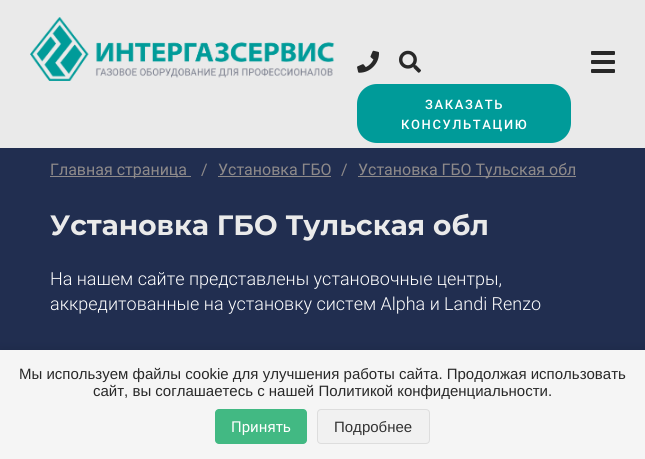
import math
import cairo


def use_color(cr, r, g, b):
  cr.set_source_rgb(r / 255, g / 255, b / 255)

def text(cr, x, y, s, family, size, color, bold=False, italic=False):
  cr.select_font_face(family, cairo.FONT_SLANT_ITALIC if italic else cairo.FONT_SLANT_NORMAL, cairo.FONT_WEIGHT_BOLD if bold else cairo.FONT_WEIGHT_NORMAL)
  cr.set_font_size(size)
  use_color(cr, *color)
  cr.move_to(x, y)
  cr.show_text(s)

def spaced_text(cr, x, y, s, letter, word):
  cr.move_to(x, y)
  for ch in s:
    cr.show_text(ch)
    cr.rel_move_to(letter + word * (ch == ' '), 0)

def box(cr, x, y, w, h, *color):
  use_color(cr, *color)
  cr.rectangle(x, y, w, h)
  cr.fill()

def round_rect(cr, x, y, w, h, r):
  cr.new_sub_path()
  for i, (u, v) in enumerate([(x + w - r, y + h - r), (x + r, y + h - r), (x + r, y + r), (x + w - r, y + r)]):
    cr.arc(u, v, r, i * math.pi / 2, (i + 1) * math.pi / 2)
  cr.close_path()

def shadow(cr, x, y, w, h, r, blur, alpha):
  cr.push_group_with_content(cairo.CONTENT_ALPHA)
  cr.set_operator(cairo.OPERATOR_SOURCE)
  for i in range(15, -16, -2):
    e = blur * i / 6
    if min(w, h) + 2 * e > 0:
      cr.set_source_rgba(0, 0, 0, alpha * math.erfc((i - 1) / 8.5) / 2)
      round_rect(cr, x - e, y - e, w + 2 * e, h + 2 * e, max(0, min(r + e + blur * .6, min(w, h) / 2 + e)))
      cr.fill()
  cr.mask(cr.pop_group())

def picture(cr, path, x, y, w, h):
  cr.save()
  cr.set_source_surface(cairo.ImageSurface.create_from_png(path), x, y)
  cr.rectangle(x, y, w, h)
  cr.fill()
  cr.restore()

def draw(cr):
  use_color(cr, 234, 234, 234)
  cr.paint()
  picture(cr, "img_01.png", 30, 17, 305, 64)
  use_color(cr, 40, 40, 40)
  round_rect(cr, 591, 51, 24, 4, 1)
  cr.fill()
  round_rect(cr, 591, 60, 24, 4, 1)
  cr.fill()
  round_rect(cr, 591, 69, 24, 4, 1)
  cr.fill()
  picture(cr, "img_02.png", 357, 50, 22, 23)
  picture(cr, "img_03.png", 399, 50, 22, 23)
  use_color(cr, 0, 155, 153)
  round_rect(cr, 357, 84, 214, 59, 20)
  cr.fill()
  box(cr, 0, 148, 645, 202, 33, 46, 80)
  box(cr, 50, 176, 141, 1, 142, 138, 138)
  box(cr, 218, 176, 113, 1, 142, 138, 138)
  box(cr, 358, 176, 218, 1, 142, 138, 138)
  use_color(cr, 0, 0, 0)
  shadow(cr, 0, 348, 645, 109, 0, 5, 0.1)
  box(cr, 0, 350, 645, 109, 245, 245, 245)
  use_color(cr, 66, 185, 131)
  round_rect(cr, 215, 409, 92, 35, 4)
  cr.fill()
  use_color(cr, 241, 241, 241)
  round_rect(cr, 317.5, 409.5, 112, 34, 3.5)
  cr.fill_preserve()
  use_color(cr, 221, 221, 221)
  cr.set_line_width(1)
  cr.stroke()
  cr.select_font_face("Roboto Medium")
  cr.set_font_size(13)
  use_color(cr, 255, 255, 255)
  spaced_text(cr, 425, 109, "ЗАКАЗАТЬ", 1.6, 0)
  spaced_text(cr, 401, 129, "КОНСУЛЬТАЦИЮ", 1.6, 0)
  text(cr, 50, 175, "Главная страница", "Roboto", 16, (142, 138, 138))
  text(cr, 201, 175, "/", "Roboto", 16, (142, 138, 138))
  text(cr, 218, 175, "Установка ГБО", "Roboto", 16, (142, 138, 138))
  text(cr, 341, 175, "/", "Roboto", 16, (142, 138, 138))
  text(cr, 358, 175, "Установка ГБО Тульская обл", "Roboto", 16, (142, 138, 138))
  text(cr, 50, 235, "Установка ГБО Тульская обл", "Montserrat", 28, (234, 234, 234), bold=True)
  text(cr, 50, 285, "На нашем сайте представлены установочные центры,", "Roboto Light", 18, (255, 255, 255))
  text(cr, 50, 310, "аккредитованные на установку систем Alpha и Landi Renzo", "Roboto Light", 18, (255, 255, 255))
  text(cr, 19, 379, "Мы используем файлы cookie для улучшения работы сайта. Продолжая использовать", "Liberation Sans", 15, (40, 40, 40))
  text(cr, 93, 396, "сайт, вы соглашаетесь с нашей Политикой конфиденциальности.", "Liberation Sans", 15, (40, 40, 40))
  text(cr, 231, 432, "Принять", "Roboto", 15, (255, 255, 255))
  text(cr, 334, 432, "Подробнее", "Liberation Sans", 15, (51, 51, 51))


surface = cairo.ImageSurface(cairo.FORMAT_RGB24, 645, 459)
cr = cairo.Context(surface)
options = cairo.FontOptions()
options.set_hint_metrics(cairo.HINT_METRICS_OFF)
options.set_hint_style(cairo.HINT_STYLE_NONE)
cr.set_font_options(options)
cr.set_miter_limit(4)
draw(cr)
surface.write_to_png("out.png")
